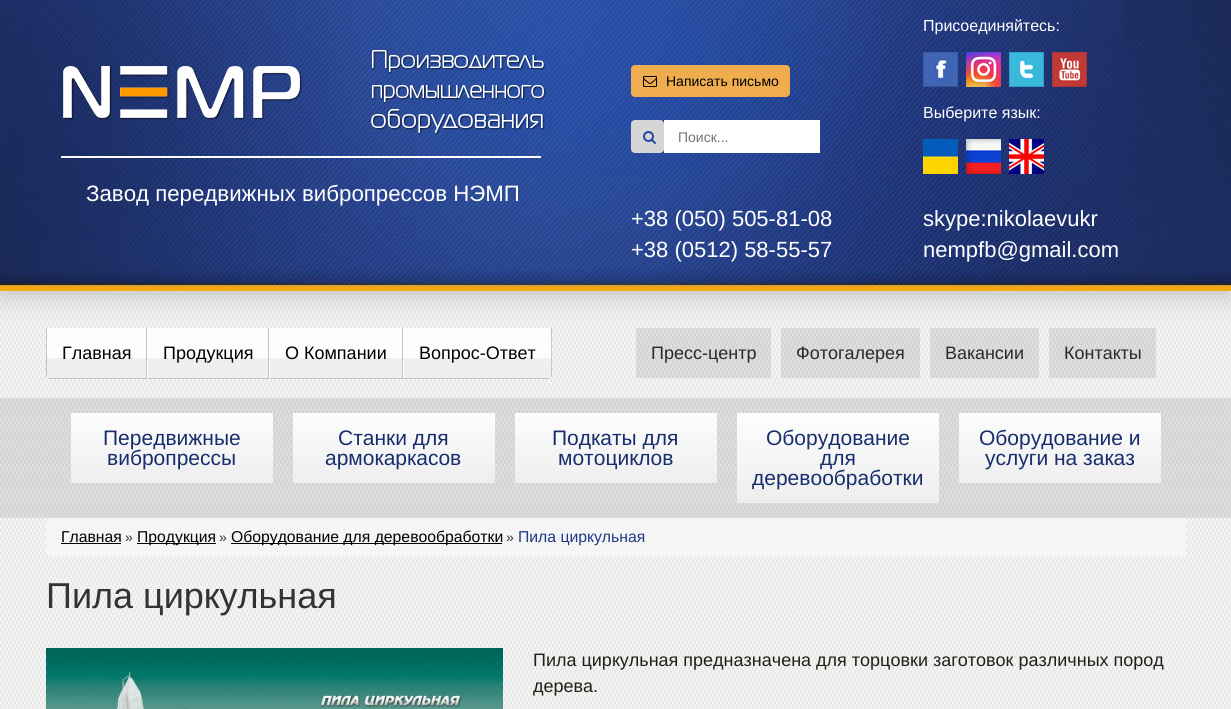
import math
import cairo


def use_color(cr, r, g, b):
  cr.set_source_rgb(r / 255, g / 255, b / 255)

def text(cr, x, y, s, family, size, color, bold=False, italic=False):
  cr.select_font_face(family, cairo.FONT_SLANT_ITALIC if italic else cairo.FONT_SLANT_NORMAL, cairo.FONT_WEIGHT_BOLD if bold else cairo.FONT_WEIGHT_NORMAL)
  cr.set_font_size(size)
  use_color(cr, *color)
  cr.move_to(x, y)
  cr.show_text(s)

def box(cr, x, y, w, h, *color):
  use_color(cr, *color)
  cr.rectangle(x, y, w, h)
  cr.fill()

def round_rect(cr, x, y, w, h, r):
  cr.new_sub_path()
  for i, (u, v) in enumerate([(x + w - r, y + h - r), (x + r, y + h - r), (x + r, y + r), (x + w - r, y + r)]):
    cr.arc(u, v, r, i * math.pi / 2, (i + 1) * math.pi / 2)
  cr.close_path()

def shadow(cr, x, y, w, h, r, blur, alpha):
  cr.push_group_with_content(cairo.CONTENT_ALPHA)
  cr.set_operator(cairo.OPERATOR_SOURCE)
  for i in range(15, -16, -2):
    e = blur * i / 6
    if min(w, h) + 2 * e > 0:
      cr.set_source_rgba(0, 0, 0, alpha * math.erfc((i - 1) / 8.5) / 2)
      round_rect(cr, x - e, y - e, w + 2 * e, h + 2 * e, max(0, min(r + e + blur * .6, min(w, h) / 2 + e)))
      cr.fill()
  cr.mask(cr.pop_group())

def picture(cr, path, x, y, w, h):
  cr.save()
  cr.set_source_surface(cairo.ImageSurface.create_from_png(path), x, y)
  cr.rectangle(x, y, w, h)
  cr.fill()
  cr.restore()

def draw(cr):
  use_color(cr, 255, 255, 255)
  cr.paint()
  picture(cr, "img_01.png", 0, 291, 1231, 418)
  use_color(cr, 197, 197, 197)
  shadow(cr, 0, 6, 1231, 291, 0, 12.5, 1)
  picture(cr, "img_02.png", 0, 0, 1231, 291)
  picture(cr, "img_03.png", 61, 50, 485, 108)
  use_color(cr, 240, 173, 78)
  round_rect(cr, 631, 65, 159, 32, 4)
  cr.fill()
  picture(cr, "img_04.png", 643, 76, 14, 11)
  use_color(cr, 214, 214, 214)
  round_rect(cr, 631, 120, 33, 33, 4)
  cr.fill()
  picture(cr, "img_05.png", 643, 131, 13, 13)
  box(cr, 664, 120, 156, 33, 255, 255, 255)
  picture(cr, "img_06.png", 923, 52, 35, 35)
  picture(cr, "img_07.png", 966, 52, 35, 35)
  picture(cr, "img_08.png", 1009, 52, 35, 35)
  picture(cr, "img_09.png", 1052, 52, 35, 35)
  picture(cr, "img_10.png", 923, 139, 35, 35)
  picture(cr, "img_11.png", 966, 139, 35, 35)
  picture(cr, "img_12.png", 1009, 139, 35, 35)
  use_color(cr, 194, 194, 194)
  cr.set_fill_rule(cairo.FILL_RULE_EVEN_ODD)
  cr.new_path()
  cr.move_to(46, 328)
  cr.line_to(147, 328)
  cr.line_to(147, 379)
  cr.line_to(50, 379)
  cr.curve_to(48, 379, 46, 377, 46, 375)
  cr.close_path()
  cr.move_to(47, 328)
  cr.line_to(146, 328)
  cr.line_to(146, 378)
  cr.line_to(50, 378)
  cr.curve_to(48, 378, 47, 377, 47, 375)
  cr.close_path()
  cr.fill()
  box(cr, 47, 328, 99, 30, 253, 253, 253)
  box(cr, 47, 358, 99, 20, 239, 239, 239)
  box(cr, 268, 328, 1, 51, 194, 194, 194)
  box(cr, 147, 378, 122, 1, 194, 194, 194)
  box(cr, 147, 328, 1, 51, 255, 255, 255)
  box(cr, 148, 328, 120, 30, 253, 253, 253)
  box(cr, 148, 358, 120, 20, 239, 239, 239)
  box(cr, 402, 328, 1, 51, 194, 194, 194)
  box(cr, 269, 378, 134, 1, 194, 194, 194)
  box(cr, 269, 328, 1, 51, 255, 255, 255)
  box(cr, 270, 328, 132, 30, 253, 253, 253)
  box(cr, 270, 358, 132, 20, 239, 239, 239)
  use_color(cr, 194, 194, 194)
  cr.set_fill_rule(cairo.FILL_RULE_WINDING)
  cr.new_path()
  cr.move_to(552, 328)
  cr.line_to(551, 328)
  cr.curve_to(551, 334, 552, 375, 550, 377)
  cr.line_to(551, 378)
  cr.line_to(552, 375)
  cr.close_path()
  cr.fill()
  cr.new_path()
  cr.move_to(404, 378)
  cr.line_to(548, 378)
  cr.line_to(550, 377)
  cr.line_to(551, 378)
  cr.line_to(548, 379)
  cr.line_to(403, 379)
  cr.close_path()
  cr.fill()
  use_color(cr, 255, 255, 255)
  cr.new_path()
  cr.move_to(403, 328)
  cr.line_to(404, 328)
  cr.line_to(404, 378)
  cr.line_to(403, 379)
  cr.close_path()
  cr.fill()
  box(cr, 404, 328, 147, 30, 253, 253, 253)
  box(cr, 404, 358, 147, 20, 239, 239, 239)
  cr.set_source_rgba(0.325, 0.325, 0.325, 0.14)
  cr.rectangle(636, 328, 135, 50)
  cr.fill()
  cr.rectangle(781, 328, 139, 50)
  cr.fill()
  cr.rectangle(930, 328, 109, 50)
  cr.fill()
  cr.rectangle(1049, 328, 107, 50)
  cr.fill()
  cr.rectangle(0, 398, 1231, 120)
  cr.fill()
  gradient = cairo.LinearGradient(172, 413, 172, 483)
  gradient.add_color_stop_rgba(0, 0.992, 0.992, 0.992, 1)
  gradient.add_color_stop_rgba(1, 0.933, 0.933, 0.933, 1)
  cr.set_source(gradient)
  cr.rectangle(71, 413, 202, 70)
  cr.fill()
  gradient = cairo.LinearGradient(394, 413, 394, 483)
  gradient.add_color_stop_rgba(0, 0.992, 0.992, 0.992, 1)
  gradient.add_color_stop_rgba(1, 0.933, 0.933, 0.933, 1)
  cr.set_source(gradient)
  cr.rectangle(293, 413, 202, 70)
  cr.fill()
  gradient = cairo.LinearGradient(616, 413, 616, 483)
  gradient.add_color_stop_rgba(0, 0.992, 0.992, 0.992, 1)
  gradient.add_color_stop_rgba(1, 0.933, 0.933, 0.933, 1)
  cr.set_source(gradient)
  cr.rectangle(515, 413, 202, 70)
  cr.fill()
  gradient = cairo.LinearGradient(838, 413, 838, 503)
  gradient.add_color_stop_rgba(0, 0.992, 0.992, 0.992, 1)
  gradient.add_color_stop_rgba(1, 0.933, 0.933, 0.933, 1)
  cr.set_source(gradient)
  cr.rectangle(737, 413, 202, 90)
  cr.fill()
  gradient = cairo.LinearGradient(1060, 413, 1060, 483)
  gradient.add_color_stop_rgba(0, 0.992, 0.992, 0.992, 1)
  gradient.add_color_stop_rgba(1, 0.933, 0.933, 0.933, 1)
  cr.set_source(gradient)
  cr.rectangle(959, 413, 202, 70)
  cr.fill()
  use_color(cr, 245, 245, 245)
  round_rect(cr, 46, 518, 1140, 38, 4)
  cr.fill()
  box(cr, 61, 543, 60, 1, 0, 0, 0)
  box(cr, 137, 543, 79, 1, 0, 0, 0)
  box(cr, 231, 543, 271, 1, 0, 0, 0)
  picture(cr, "img_13.png", 46, 648, 457, 61)
  text(cr, 86, 201, "Завод передвижных вибропрессов НЭМП", "Liberation Sans", 22.25, (255, 255, 255))
  text(cr, 666, 86, "Написать письмо", "Liberation Sans", 14, (0, 0, 0))
  text(cr, 678, 142, "Поиск...", "Liberation Sans", 14, (117, 117, 117))
  text(cr, 923, 31, "Присоединяйтесь:", "Liberation Sans", 16, (255, 255, 255))
  text(cr, 923, 118, "Выберите язык:", "Liberation Sans", 16, (255, 255, 255))
  text(cr, 631, 226, "+38 (050) 505-81-08", "Liberation Sans", 22, (255, 255, 255))
  text(cr, 631, 257, "+38 (0512) 58-55-57", "Liberation Sans", 22, (255, 255, 255))
  text(cr, 923, 226, "skype:nikolaevukr", "Liberation Sans", 22, (255, 255, 255))
  text(cr, 923, 257, "nempfb@gmail.com", "Liberation Sans", 22, (255, 255, 255))
  text(cr, 62, 359, "Главная", "Liberation Sans", 18, (0, 0, 0))
  text(cr, 163, 359, "Продукция", "Liberation Sans", 18, (0, 0, 0))
  text(cr, 285, 359, "О Компании", "Liberation Sans", 18, (0, 0, 0))
  text(cr, 419, 359, "Вопрос-Ответ", "Liberation Sans", 18, (0, 0, 0))
  text(cr, 651, 359, "Пресс-центр", "Liberation Sans", 18, (42, 42, 42))
  text(cr, 796, 359, "Фотогалерея", "Liberation Sans", 18, (42, 42, 42))
  text(cr, 945, 359, "Вакансии", "Liberation Sans", 18, (42, 42, 42))
  text(cr, 1064, 359, "Контакты", "Liberation Sans", 18, (42, 42, 42))
  text(cr, 103, 445, "Передвижные", "Liberation Sans", 21, (23, 46, 110))
  text(cr, 107, 465, "вибропрессы", "Liberation Sans", 21, (23, 46, 110))
  text(cr, 338, 445, "Станки для", "Liberation Sans", 21, (23, 46, 110))
  text(cr, 325, 465, "армокаркасов", "Liberation Sans", 21, (23, 46, 110))
  text(cr, 552, 445, "Подкаты для", "Liberation Sans", 21, (23, 46, 110))
  text(cr, 558, 465, "мотоциклов", "Liberation Sans", 21, (23, 46, 110))
  text(cr, 766, 445, "Оборудование", "Liberation Sans", 21, (23, 46, 110))
  text(cr, 820, 465, "для", "Liberation Sans", 21, (23, 46, 110))
  text(cr, 752, 485, "деревообработки", "Liberation Sans", 21, (23, 46, 110))
  text(cr, 979, 445, "Оборудование и", "Liberation Sans", 21, (23, 46, 110))
  text(cr, 985, 465, "услуги на заказ", "Liberation Sans", 21, (23, 46, 110))
  text(cr, 61, 542, "Главная", "Liberation Sans", 15.75, (0, 0, 0))
  text(cr, 125, 542, "»", "Liberation Sans", 14, (51, 51, 51))
  text(cr, 137, 542, "Продукция", "Liberation Sans", 15.75, (0, 0, 0))
  text(cr, 219, 542, "»", "Liberation Sans", 14, (51, 51, 51))
  text(cr, 231, 542, "Оборудование для деревообработки", "Liberation Sans", 15.75, (0, 0, 0))
  text(cr, 506, 542, "»", "Liberation Sans", 14, (51, 51, 51))
  text(cr, 518, 542, "Пила циркульная", "Liberation Sans", 15.75, (28, 56, 132))
  text(cr, 46, 608, "Пила циркульная", "Liberation Sans", 36, (51, 51, 51))
  text(cr, 533, 666, "Пила циркульная предназначена для торцовки заготовок различных пород", "Liberation Sans", 18, (29, 34, 21))
  text(cr, 533, 692, "дерева.", "Liberation Sans", 18, (29, 34, 21))


surface = cairo.ImageSurface(cairo.FORMAT_RGB24, 1231, 709)
cr = cairo.Context(surface)
options = cairo.FontOptions()
options.set_hint_metrics(cairo.HINT_METRICS_OFF)
options.set_hint_style(cairo.HINT_STYLE_NONE)
cr.set_font_options(options)
cr.set_miter_limit(4)
draw(cr)
surface.write_to_png("out.png")
